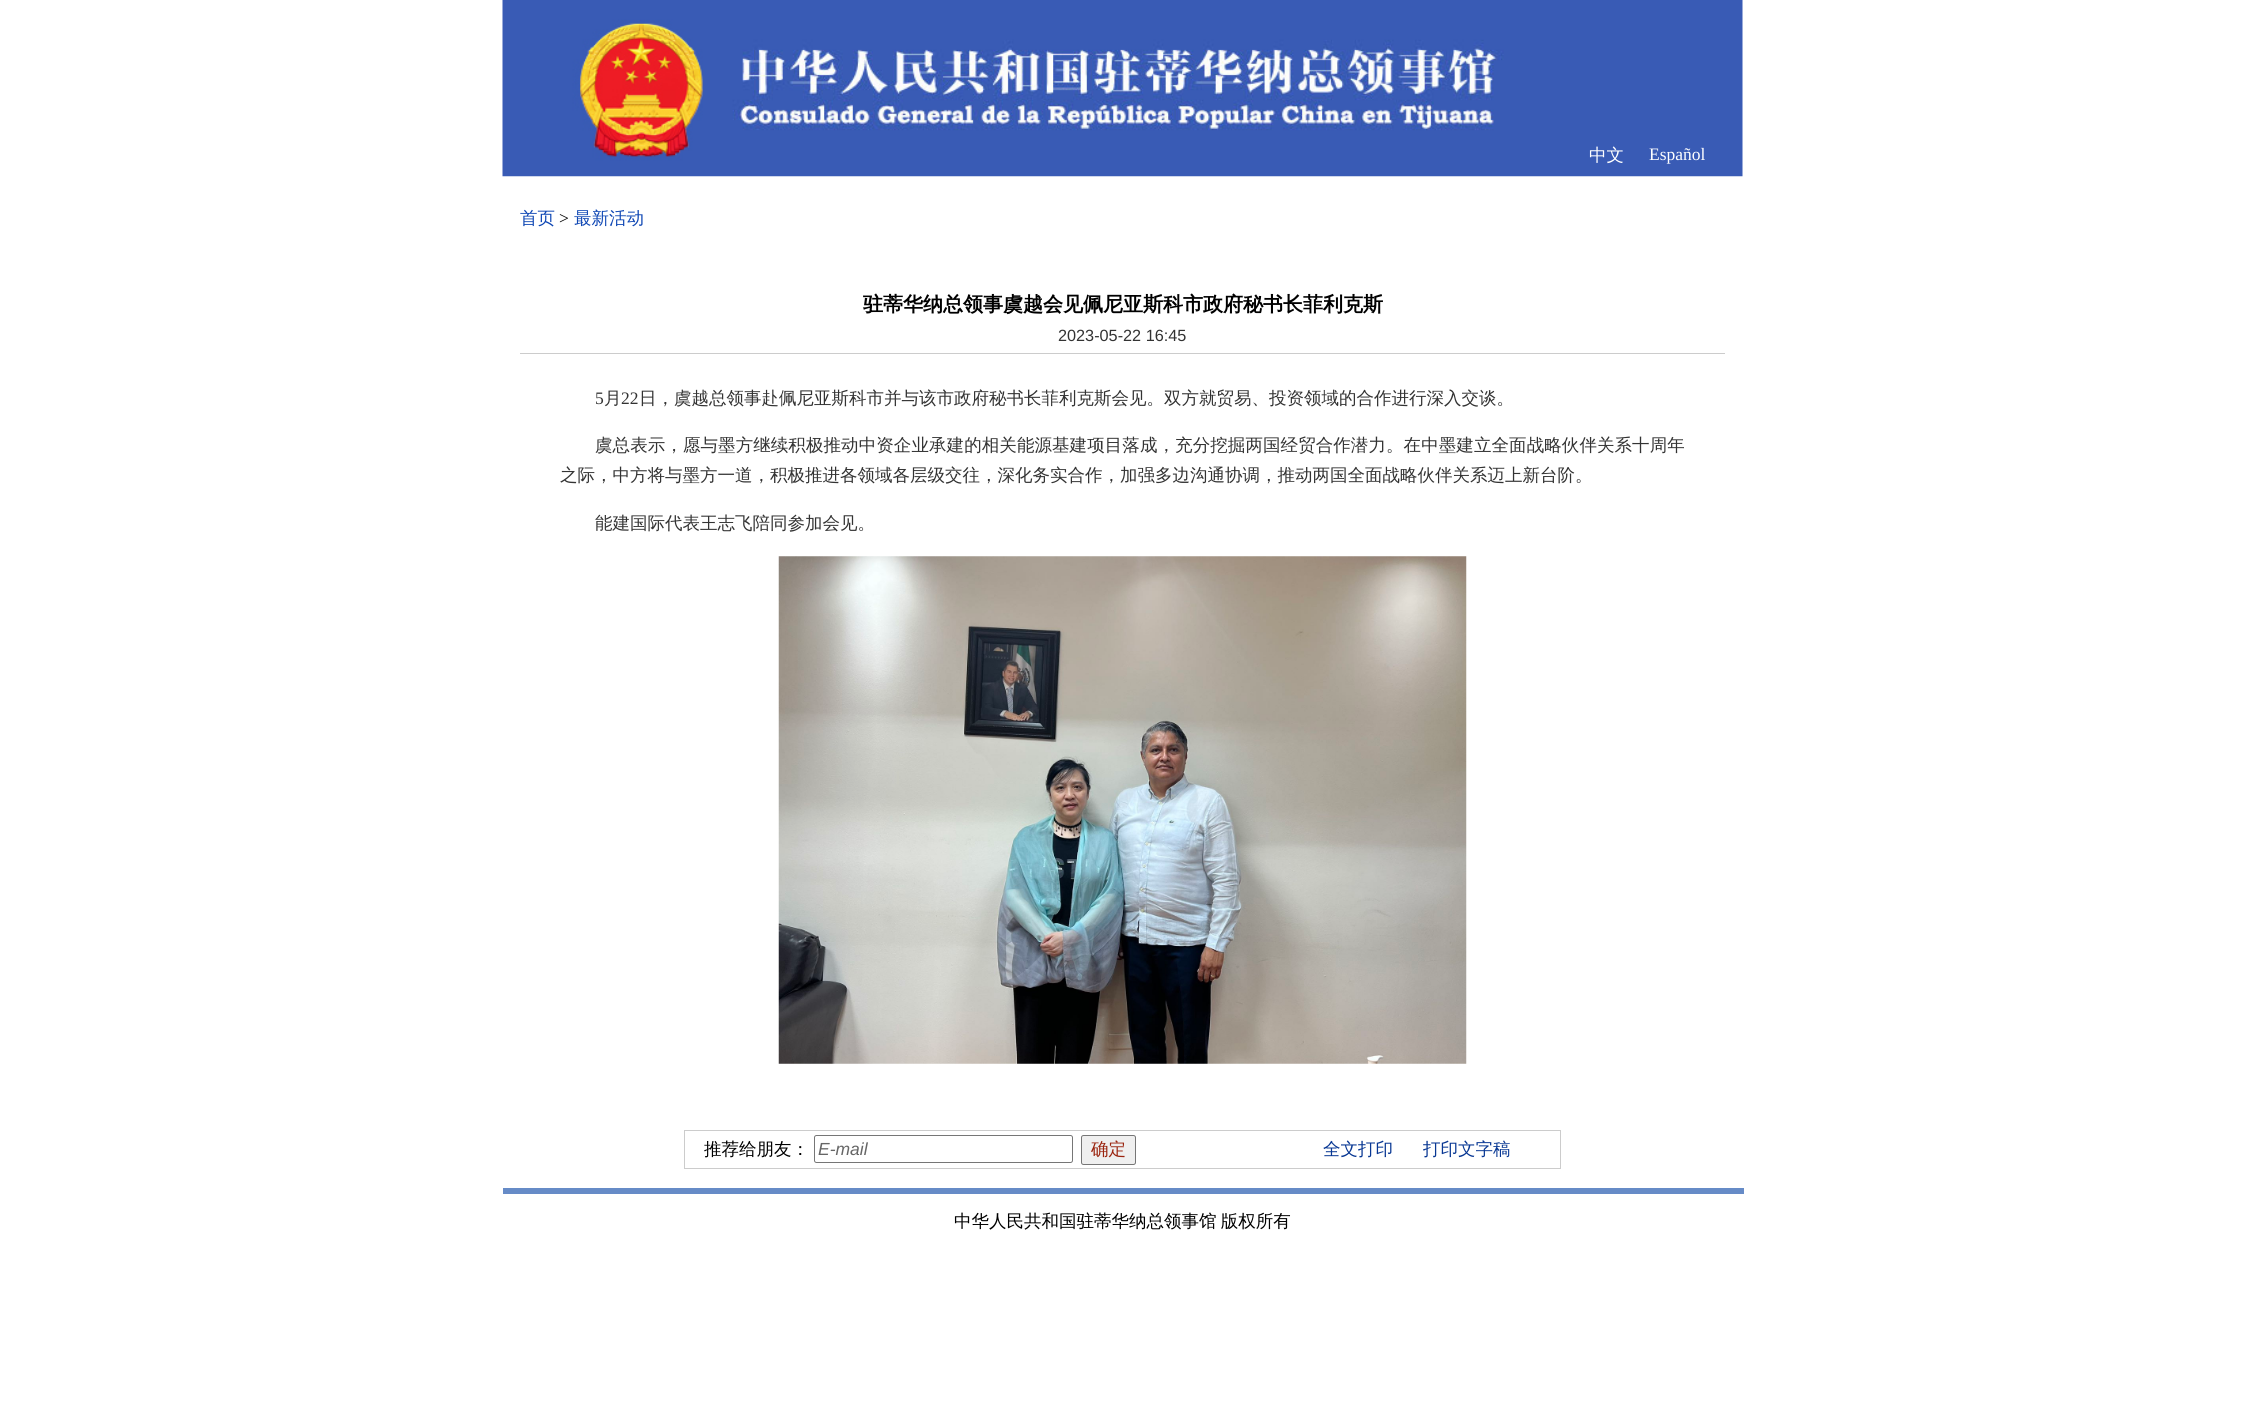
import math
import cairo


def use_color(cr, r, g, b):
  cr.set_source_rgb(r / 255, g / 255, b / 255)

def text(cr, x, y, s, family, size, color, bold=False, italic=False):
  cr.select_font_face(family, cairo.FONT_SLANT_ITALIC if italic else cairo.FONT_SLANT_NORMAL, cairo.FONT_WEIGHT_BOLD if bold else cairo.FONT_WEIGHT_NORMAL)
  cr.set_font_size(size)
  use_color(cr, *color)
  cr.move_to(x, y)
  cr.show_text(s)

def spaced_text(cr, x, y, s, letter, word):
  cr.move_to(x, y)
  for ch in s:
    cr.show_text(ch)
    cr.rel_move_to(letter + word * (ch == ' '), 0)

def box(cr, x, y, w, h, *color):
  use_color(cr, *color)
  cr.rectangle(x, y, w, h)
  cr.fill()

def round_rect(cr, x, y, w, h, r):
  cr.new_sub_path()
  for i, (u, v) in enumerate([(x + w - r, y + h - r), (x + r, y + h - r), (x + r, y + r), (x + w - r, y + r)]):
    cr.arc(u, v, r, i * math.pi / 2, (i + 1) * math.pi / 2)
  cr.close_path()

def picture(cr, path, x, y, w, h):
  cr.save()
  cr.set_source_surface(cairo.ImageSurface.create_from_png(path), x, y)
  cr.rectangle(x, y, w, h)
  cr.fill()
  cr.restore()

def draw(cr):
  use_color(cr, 255, 255, 255)
  cr.paint()
  picture(cr, "img_01.png", 502, 0, 1241, 177)
  box(cr, 520, 353, 1205, 1, 204, 204, 204)
  picture(cr, "img_02.png", 778, 556, 689, 508)
  cr.rectangle(684.5, 1130.5, 876, 38)
  cr.set_line_width(1)
  cr.stroke()
  round_rect(cr, 814.5, 1135.5, 258, 27, 2)
  use_color(cr, 118, 118, 118)
  cr.stroke()
  use_color(cr, 239, 239, 239)
  round_rect(cr, 1081.5, 1135.5, 54, 29, 2)
  cr.fill_preserve()
  use_color(cr, 118, 118, 118)
  cr.stroke()
  box(cr, 503, 1188, 1241, 6, 102, 139, 199)
  text(cr, 1589, 161, "中文", "WenQuanYi Zen Hei Medium", 17.5, (255, 255, 255))
  text(cr, 1649, 160, "Español", "Liberation Serif", 17.5, (255, 255, 255))
  text(cr, 520, 224, "首页", "WenQuanYi Zen Hei Medium", 17.5, (15, 71, 180))
  text(cr, 559, 224, ">", "Liberation Serif", 17.5, (0, 0, 0))
  text(cr, 574, 224, "最新活动", "WenQuanYi Zen Hei Medium", 17.5, (15, 71, 180))
  text(cr, 863, 311, "驻蒂华纳总领事虞越会见佩尼亚斯科市政府秘书长菲利克斯", "WenQuanYi Zen Hei", 20, (0, 0, 0), bold=True)
  text(cr, 1058, 341, "2023-05-22 16:45", "Liberation Sans", 16.25, (51, 51, 51))
  text(cr, 595, 404, "5", "Liberation Serif", 17.5, (51, 51, 51))
  text(cr, 604, 404, "月", "WenQuanYi Zen Hei Medium", 17.5, (51, 51, 51))
  text(cr, 621, 404, "22", "Liberation Serif", 17.5, (51, 51, 51))
  text(cr, 639, 404, "日，虞越总领事赴佩尼亚斯科市并与该市政府秘书长菲利克斯会见。双方就贸易、投资领域的合作进行深入交谈。", "WenQuanYi Zen Hei Medium", 17.5, (51, 51, 51))
  spaced_text(cr, 595, 451, "虞总表示，愿与墨方继续积极推动中资企业承建的相关能源基建项目落成，充分挖掘两国经贸合作潜力。在中墨建立全面战略伙伴关系十周年", 0.08, 0)
  text(cr, 560, 481, "之际，中方将与墨方一道，积极推进各领域各层级交往，深化务实合作，加强多边沟通协调，推动两国全面战略伙伴关系迈上新台阶。", "WenQuanYi Zen Hei Medium", 17.5, (51, 51, 51))
  text(cr, 595, 529, "能建国际代表王志飞陪同参加会见。", "WenQuanYi Zen Hei Medium", 17.5, (51, 51, 51))
  text(cr, 704, 1155, "推荐给朋友：", "WenQuanYi Zen Hei Medium", 17.5, (0, 0, 0))
  text(cr, 818, 1155, "E-mail", "Liberation Sans", 17.5, (102, 102, 102), italic=True)
  text(cr, 1091, 1155, "确定", "WenQuanYi Zen Hei Medium", 17.5, (154, 35, 14))
  text(cr, 1323, 1155, "全文打印", "WenQuanYi Zen Hei Medium", 17.5, (8, 55, 147))
  text(cr, 1423, 1155, "打印文字稿", "WenQuanYi Zen Hei Medium", 17.5, (8, 55, 147))
  use_color(cr, 0, 0, 0)
  spaced_text(cr, 954, 1227, "中华人民共和国驻蒂华纳总领事馆 版权所有", 0, -1)


surface = cairo.ImageSurface(cairo.FORMAT_RGB24, 2244, 1409)
cr = cairo.Context(surface)
options = cairo.FontOptions()
options.set_hint_metrics(cairo.HINT_METRICS_OFF)
options.set_hint_style(cairo.HINT_STYLE_NONE)
cr.set_font_options(options)
cr.set_miter_limit(4)
draw(cr)
surface.write_to_png("out.png")
